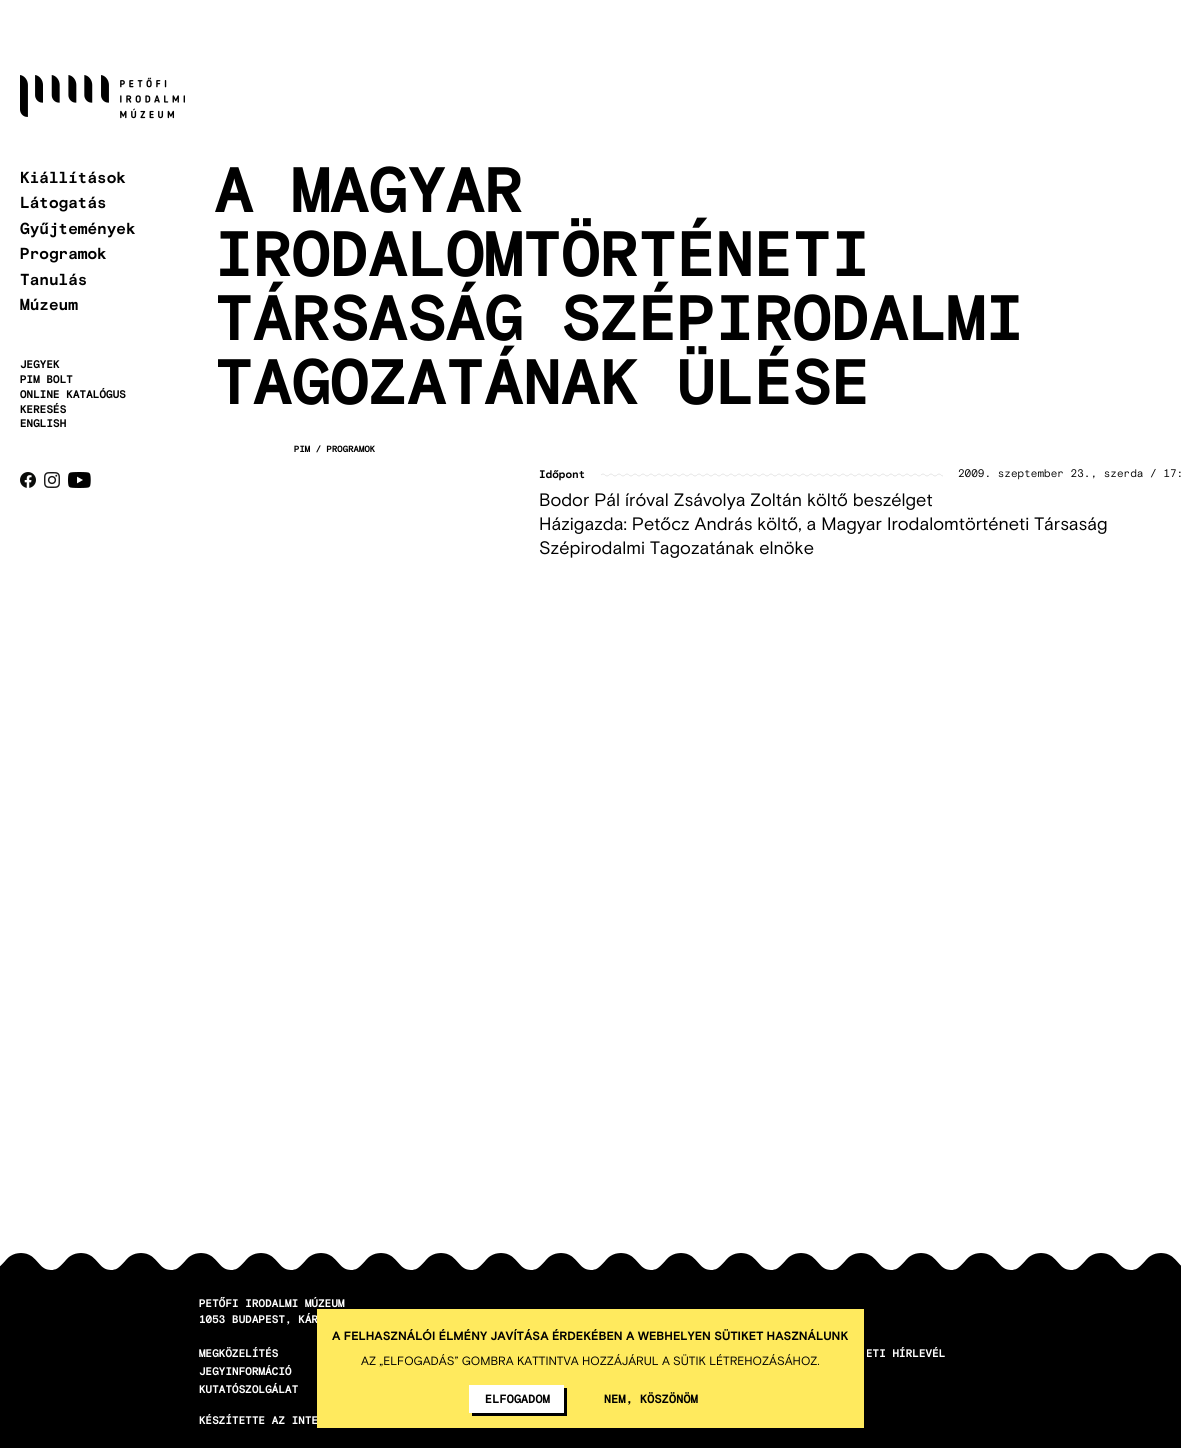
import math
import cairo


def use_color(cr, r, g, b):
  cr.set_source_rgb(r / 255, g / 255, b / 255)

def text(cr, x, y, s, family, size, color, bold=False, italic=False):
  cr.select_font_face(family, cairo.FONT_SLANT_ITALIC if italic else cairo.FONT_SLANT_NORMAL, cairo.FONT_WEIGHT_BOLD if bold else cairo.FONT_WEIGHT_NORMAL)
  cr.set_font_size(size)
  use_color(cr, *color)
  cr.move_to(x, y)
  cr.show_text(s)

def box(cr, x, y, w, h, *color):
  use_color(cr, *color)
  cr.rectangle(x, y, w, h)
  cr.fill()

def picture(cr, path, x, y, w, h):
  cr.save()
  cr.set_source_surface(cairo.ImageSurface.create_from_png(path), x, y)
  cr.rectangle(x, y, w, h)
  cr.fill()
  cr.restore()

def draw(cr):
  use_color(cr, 255, 255, 255)
  cr.paint()
  picture(cr, "img_01.png", 20, 75, 165, 44)
  picture(cr, "img_02.png", 20, 472, 16, 16)
  picture(cr, "img_03.png", 44, 472, 16, 16)
  picture(cr, "img_04.png", 68, 472, 23, 16)
  picture(cr, "img_05.png", 601, 473, 342, 4)
  box(cr, 0, 1275, 1181, 173, 0, 0, 0)
  picture(cr, "img_06.png", 0, 1253, 1181, 22)
  text(cr, 20, 183, "Kiállítások", "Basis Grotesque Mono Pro", 16, (0, 0, 0), bold=True)
  text(cr, 20, 208, "Látogatás", "Basis Grotesque Mono Pro", 16, (0, 0, 0), bold=True)
  text(cr, 20, 234, "Gyűjtemények", "Basis Grotesque Mono Pro", 16, (0, 0, 0), bold=True)
  text(cr, 20, 259, "Programok", "Basis Grotesque Mono Pro", 16, (0, 0, 0), bold=True)
  text(cr, 20, 285, "Tanulás", "Basis Grotesque Mono Pro", 16, (0, 0, 0), bold=True)
  text(cr, 20, 310, "Múzeum", "Basis Grotesque Mono Pro", 16, (0, 0, 0), bold=True)
  text(cr, 20, 368, "JEGYEK", "Basis Grotesque Mono Pro", 11, (0, 0, 0), bold=True)
  text(cr, 20, 383, "PIM BOLT", "Basis Grotesque Mono Pro", 11, (0, 0, 0), bold=True)
  text(cr, 20, 398, "ONLINE KATALÓGUS", "Basis Grotesque Mono Pro", 11, (0, 0, 0), bold=True)
  text(cr, 20, 413, "KERESÉS", "Basis Grotesque Mono Pro", 11, (0, 0, 0), bold=True)
  text(cr, 20, 427, "ENGLISH", "Basis Grotesque Mono Pro", 11, (0, 0, 0), bold=True)
  text(cr, 215, 212, "A MAGYAR", "Basis Grotesque Mono Pro", 64, (0, 0, 0), bold=True)
  text(cr, 215, 276, "IRODALOMTÖRTÉNETI", "Basis Grotesque Mono Pro", 64, (0, 0, 0), bold=True)
  text(cr, 215, 340, "TÁRSASÁG SZÉPIRODALMI", "Basis Grotesque Mono Pro", 64, (0, 0, 0), bold=True)
  text(cr, 215, 404, "TAGOZATÁNAK ÜLÉSE", "Basis Grotesque Mono Pro", 64, (0, 0, 0), bold=True)
  text(cr, 294, 452, "PIM / PROGRAMOK", "Basis Grotesque Mono Pro", 9, (0, 0, 0), bold=True)
  text(cr, 539, 478, "Időpont", "Basis Grotesque Mono Pro", 11, (0, 0, 0), bold=True)
  text(cr, 958, 477, "2009. szeptember 23., szerda / 17:", "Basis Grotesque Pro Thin", 11, (0, 0, 0))
  text(cr, 539, 506, "Bodor Pál íróval Zsávolya Zoltán költő beszélget", "Basis Grotesque Pro", 18, (0, 0, 0))
  text(cr, 539, 530, "Házigazda: Petőcz András költő, a Magyar Irodalomtörténeti Társaság", "Basis Grotesque Pro", 18, (0, 0, 0))
  text(cr, 539, 554, "Szépirodalmi Tagozatának elnöke", "Basis Grotesque Pro", 18, (0, 0, 0))
  text(cr, 199, 1307, "PETŐFI IRODALMI MÚZEUM", "Basis Grotesque Mono Pro", 11, (255, 255, 255), bold=True)
  text(cr, 199, 1323, "1053 BUDAPEST, KÁR", "Basis Grotesque Mono Pro", 11, (255, 255, 255), bold=True)
  text(cr, 199, 1357, "MEGKÖZELÍTÉS", "Basis Grotesque Mono Pro", 11, (255, 255, 255), bold=True)
  text(cr, 866, 1357, "ETI HÍRLEVÉL", "Basis Grotesque Mono Pro", 11, (255, 255, 255), bold=True)
  text(cr, 199, 1375, "JEGYINFORMÁCIÓ", "Basis Grotesque Mono Pro", 11, (255, 255, 255), bold=True)
  text(cr, 199, 1393, "KUTATÓSZOLGÁLAT", "Basis Grotesque Mono Pro", 11, (255, 255, 255), bold=True)
  text(cr, 199, 1424, "KÉSZÍTETTE AZ INTE", "Basis Grotesque Mono Pro", 11, (255, 255, 255), bold=True)
  use_color(cr, 0, 0, 0)
  cr.new_path()
  cr.move_to(320, 1428)
  cr.line_to(320, 1431)
  cr.line_to(867, 1431)
  cr.line_to(867, 1312)
  cr.line_to(864, 1312)
  cr.line_to(864, 1428)
  cr.close_path()
  cr.fill()
  box(cr, 317, 1309, 547, 119, 255, 234, 94)
  text(cr, 332, 1340, "A FELHASZNÁLÓI ÉLMÉNY JAVÍTÁSA ÉRDEKÉBEN A WEBHELYEN SÜTIKET HASZNÁLUNK", "Basis Grotesque Pro", 12, (0, 0, 0), bold=True)
  text(cr, 361, 1365, "AZ „ELFOGADÁS” GOMBRA KATTINTVA HOZZÁJÁRUL A SÜTIK LÉTREHOZÁSÁHOZ.", "Basis Grotesque Pro", 12, (0, 0, 0))
  cr.new_path()
  cr.move_to(472, 1413)
  cr.line_to(472, 1416)
  cr.line_to(567, 1416)
  cr.line_to(567, 1388)
  cr.line_to(564, 1388)
  cr.line_to(564, 1413)
  cr.close_path()
  cr.fill()
  box(cr, 469, 1385, 95, 28, 255, 255, 255)
  text(cr, 485, 1403, "ELFOGADOM", "Basis Grotesque Mono Pro", 12, (0, 0, 0), bold=True)
  text(cr, 604, 1403, "NEM, KÖSZÖNÖM", "Basis Grotesque Mono Pro", 12, (0, 0, 0), bold=True)


surface = cairo.ImageSurface(cairo.FORMAT_RGB24, 1181, 1448)
cr = cairo.Context(surface)
options = cairo.FontOptions()
options.set_hint_metrics(cairo.HINT_METRICS_OFF)
options.set_hint_style(cairo.HINT_STYLE_NONE)
cr.set_font_options(options)
cr.set_miter_limit(4)
draw(cr)
surface.write_to_png("out.png")
